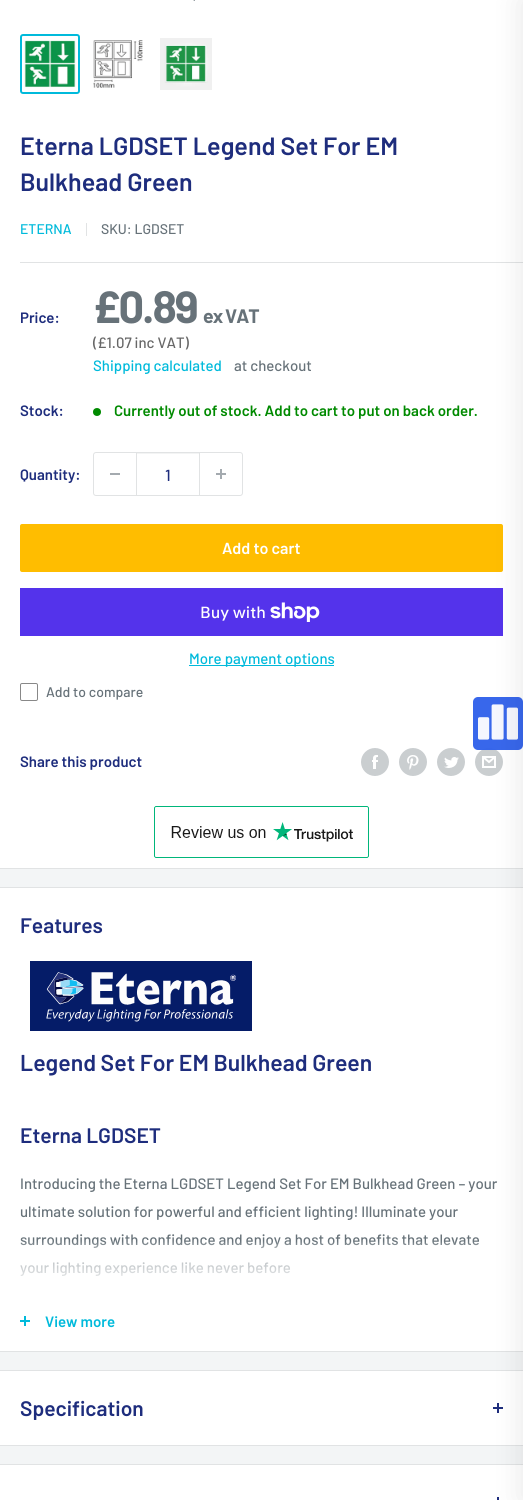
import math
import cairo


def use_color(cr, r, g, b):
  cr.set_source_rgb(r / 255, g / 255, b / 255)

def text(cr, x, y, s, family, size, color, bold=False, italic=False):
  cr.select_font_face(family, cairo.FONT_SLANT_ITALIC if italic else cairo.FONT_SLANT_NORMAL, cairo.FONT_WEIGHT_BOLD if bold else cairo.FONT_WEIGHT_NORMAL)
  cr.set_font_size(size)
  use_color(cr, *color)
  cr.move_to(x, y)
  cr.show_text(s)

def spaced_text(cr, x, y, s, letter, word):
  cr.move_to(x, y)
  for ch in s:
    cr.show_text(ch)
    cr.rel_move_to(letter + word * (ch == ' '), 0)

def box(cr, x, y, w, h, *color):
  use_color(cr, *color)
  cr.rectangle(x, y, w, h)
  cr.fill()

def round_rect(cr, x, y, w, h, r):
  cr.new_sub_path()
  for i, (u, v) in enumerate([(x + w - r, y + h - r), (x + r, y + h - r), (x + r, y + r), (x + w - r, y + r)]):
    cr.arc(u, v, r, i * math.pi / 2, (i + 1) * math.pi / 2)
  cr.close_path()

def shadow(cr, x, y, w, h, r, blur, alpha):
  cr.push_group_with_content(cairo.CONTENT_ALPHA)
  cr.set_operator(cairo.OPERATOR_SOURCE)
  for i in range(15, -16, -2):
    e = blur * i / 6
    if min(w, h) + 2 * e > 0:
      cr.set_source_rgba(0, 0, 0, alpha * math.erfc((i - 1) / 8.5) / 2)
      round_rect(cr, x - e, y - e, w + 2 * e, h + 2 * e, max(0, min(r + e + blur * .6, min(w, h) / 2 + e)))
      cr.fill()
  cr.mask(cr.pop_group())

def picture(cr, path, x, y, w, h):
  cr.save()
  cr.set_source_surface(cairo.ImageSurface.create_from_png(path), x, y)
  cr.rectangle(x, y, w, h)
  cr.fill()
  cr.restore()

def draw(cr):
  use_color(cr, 243, 245, 246)
  cr.paint()
  box(cr, 0, 0, 523, 868, 255, 255, 255)
  picture(cr, "img_01.png", 193, 0, 2, 1)
  round_rect(cr, 21, 35, 58, 58, 2)
  use_color(cr, 0, 186, 219)
  cr.stroke()
  picture(cr, "img_02.png", 24, 40, 52, 48)
  picture(cr, "img_03.png", 93, 40, 50, 48)
  picture(cr, "img_04.png", 160, 38, 52, 52)
  box(cr, 0, 868, 523, 1, 225, 227, 228)
  box(cr, 86, 223, 1, 13, 225, 227, 228)
  box(cr, 20, 262, 503, 1, 225, 227, 228)
  use_color(cr, 0, 138, 0)
  cr.arc(97, 412, 4, 0, 2 * math.pi)
  cr.fill()
  round_rect(cr, 93.5, 452.5, 149, 43, 2.5)
  use_color(cr, 225, 227, 228)
  cr.set_line_width(1)
  cr.stroke()
  box(cr, 110, 473, 10, 2, 164, 170, 175)
  box(cr, 137, 453, 62, 1, 243, 244, 244)
  box(cr, 199, 453, 1, 42, 225, 227, 228)
  box(cr, 136, 453, 1, 42, 225, 227, 228)
  picture(cr, "img_05.png", 216, 469, 10, 10)
  use_color(cr, 255, 189, 0)
  round_rect(cr, 20, 524, 483, 48, 2)
  cr.fill()
  box(cr, 20, 588, 483, 48, 84, 51, 235)
  picture(cr, "img_06.png", 270, 602, 50, 20)
  box(cr, 189, 665, 145, 1, 0, 186, 219)
  round_rect(cr, 20.5, 683.5, 17, 17, 1.5)
  use_color(cr, 136, 136, 136)
  cr.stroke()
  picture(cr, "img_07.png", 361, 748, 28, 28)
  picture(cr, "img_08.png", 399, 748, 28, 28)
  picture(cr, "img_09.png", 437, 748, 28, 28)
  picture(cr, "img_10.png", 475, 748, 28, 28)
  picture(cr, "img_11.png", 154, 806, 215, 52)
  box(cr, 0, 888, 523, 463, 255, 255, 255)
  box(cr, 0, 887, 523, 1, 225, 227, 228)
  box(cr, 0, 1351, 523, 1, 225, 227, 228)
  picture(cr, "img_12.png", 30, 961, 222, 70)
  box(cr, 24, 1316, 2, 10, 0, 186, 219)
  box(cr, 20, 1320, 10, 2, 0, 186, 219)
  box(cr, 0, 1371, 523, 74, 255, 255, 255)
  box(cr, 0, 1370, 523, 1, 225, 227, 228)
  box(cr, 0, 1445, 523, 1, 225, 227, 228)
  box(cr, 497, 1403, 2, 10, 30, 45, 125)
  box(cr, 493, 1407, 10, 2, 30, 45, 125)
  box(cr, 0, 1465, 523, 35, 255, 255, 255)
  box(cr, 0, 1464, 523, 1, 225, 227, 228)
  box(cr, 497, 1497, 2, 3, 30, 45, 125)
  cr.set_source_rgba(0.184, 0.376, 0.918, 0.95)
  round_rect(cr, 473, 697, 50, 53, 5)
  cr.fill()
  picture(cr, "img_13.png", 478, 704, 40, 36)
  text(cr, 20, 155, "Eterna LGDSET Legend Set For EM", "Barlow SemiBold", 25, (30, 45, 125))
  text(cr, 20, 191, "Bulkhead Green", "Barlow SemiBold", 25, (30, 45, 125))
  text(cr, 20, 234, "ETERNA", "Barlow Medium", 14, (0, 186, 219))
  text(cr, 101, 234, "SKU: LGDSET", "Barlow Medium", 14, (103, 114, 121))
  text(cr, 20, 323, "Price:", "Barlow SemiBold", 15, (30, 45, 125))
  cr.select_font_face("Barlow", cairo.FONT_SLANT_NORMAL, cairo.FONT_WEIGHT_BOLD)
  cr.set_font_size(45)
  use_color(cr, 103, 114, 121)
  spaced_text(cr, 93, 323, "£0.89", -2, 0)
  cr.set_font_size(19.5)
  spaced_text(cr, 203, 323, "ex VAT", -1, 0)
  text(cr, 93, 348, "(£1.07 inc VAT)", "Barlow Medium", 15, (103, 103, 103))
  text(cr, 93, 371, "Shipping calculated", "Barlow Medium", 15, (0, 186, 219))
  text(cr, 234, 371, "at checkout", "Barlow Medium", 15, (103, 114, 121))
  text(cr, 20, 416, "Stock:", "Barlow SemiBold", 15, (30, 45, 125))
  text(cr, 114, 416, "Currently out of stock. Add to cart to put on back order.", "Barlow SemiBold", 15, (0, 138, 0))
  text(cr, 20, 480, "Quantity:", "Barlow SemiBold", 15, (30, 45, 125))
  text(cr, 165, 481, "1", "Barlow Medium", 16, (30, 45, 125))
  text(cr, 222, 554, "Add to cart", "Barlow SemiBold", 16, (255, 255, 255))
  text(cr, 200, 618, "Buy with", "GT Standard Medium", 16, (255, 255, 255))
  text(cr, 189, 664, "More payment options", "Barlow Medium", 15, (0, 186, 219))
  text(cr, 46, 697, "Add to compare", "Barlow Medium", 14, (103, 114, 121))
  text(cr, 20, 767, "Share this product", "Barlow SemiBold", 15, (30, 45, 125))
  text(cr, 20, 933, "Features", "Barlow SemiBold", 21, (30, 45, 125))
  text(cr, 20, 1071, "Legend Set For EM Bulkhead Green", "Barlow SemiBold", 23, (30, 45, 125))
  text(cr, 20, 1143, "Eterna LGDSET", "Barlow SemiBold", 21, (30, 45, 125))
  text(cr, 20, 1189, "Introducing the Eterna LGDSET Legend Set For EM Bulkhead Green – your", "Barlow Medium", 15, (103, 114, 121))
  text(cr, 20, 1217, "ultimate solution for powerful and efficient lighting! Illuminate your", "Barlow Medium", 15, (103, 114, 121))
  text(cr, 20, 1245, "surroundings with confidence and enjoy a host of benefits that elevate", "Barlow Medium", 15, (103, 114, 121))
  text(cr, 20, 1273, "your lighting experience like never before", "Barlow Medium", 15, (103, 114, 121))
  gradient = cairo.LinearGradient(262, 1241, 262, 1291)
  gradient.add_color_stop_rgba(0, 1, 1, 1, 0)
  gradient.add_color_stop_rgba(0.15, 1, 1, 1, 0.4)
  gradient.add_color_stop_rgba(1, 1, 1, 1, 1)
  cr.set_source(gradient)
  cr.rectangle(20, 1241, 459, 35)
  cr.fill()
  text(cr, 45, 1327, "View more", "Barlow SemiBold", 15, (0, 186, 219))
  text(cr, 20, 1416, "Specification", "Barlow SemiBold", 21, (30, 45, 125))
  use_color(cr, 0, 0, 0)
  shadow(cr, 523, 0, 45, 1500, 0, 15, 0.1)


surface = cairo.ImageSurface(cairo.FORMAT_RGB24, 523, 1500)
cr = cairo.Context(surface)
options = cairo.FontOptions()
options.set_hint_metrics(cairo.HINT_METRICS_OFF)
options.set_hint_style(cairo.HINT_STYLE_NONE)
cr.set_font_options(options)
cr.set_miter_limit(4)
draw(cr)
surface.write_to_png("out.png")
